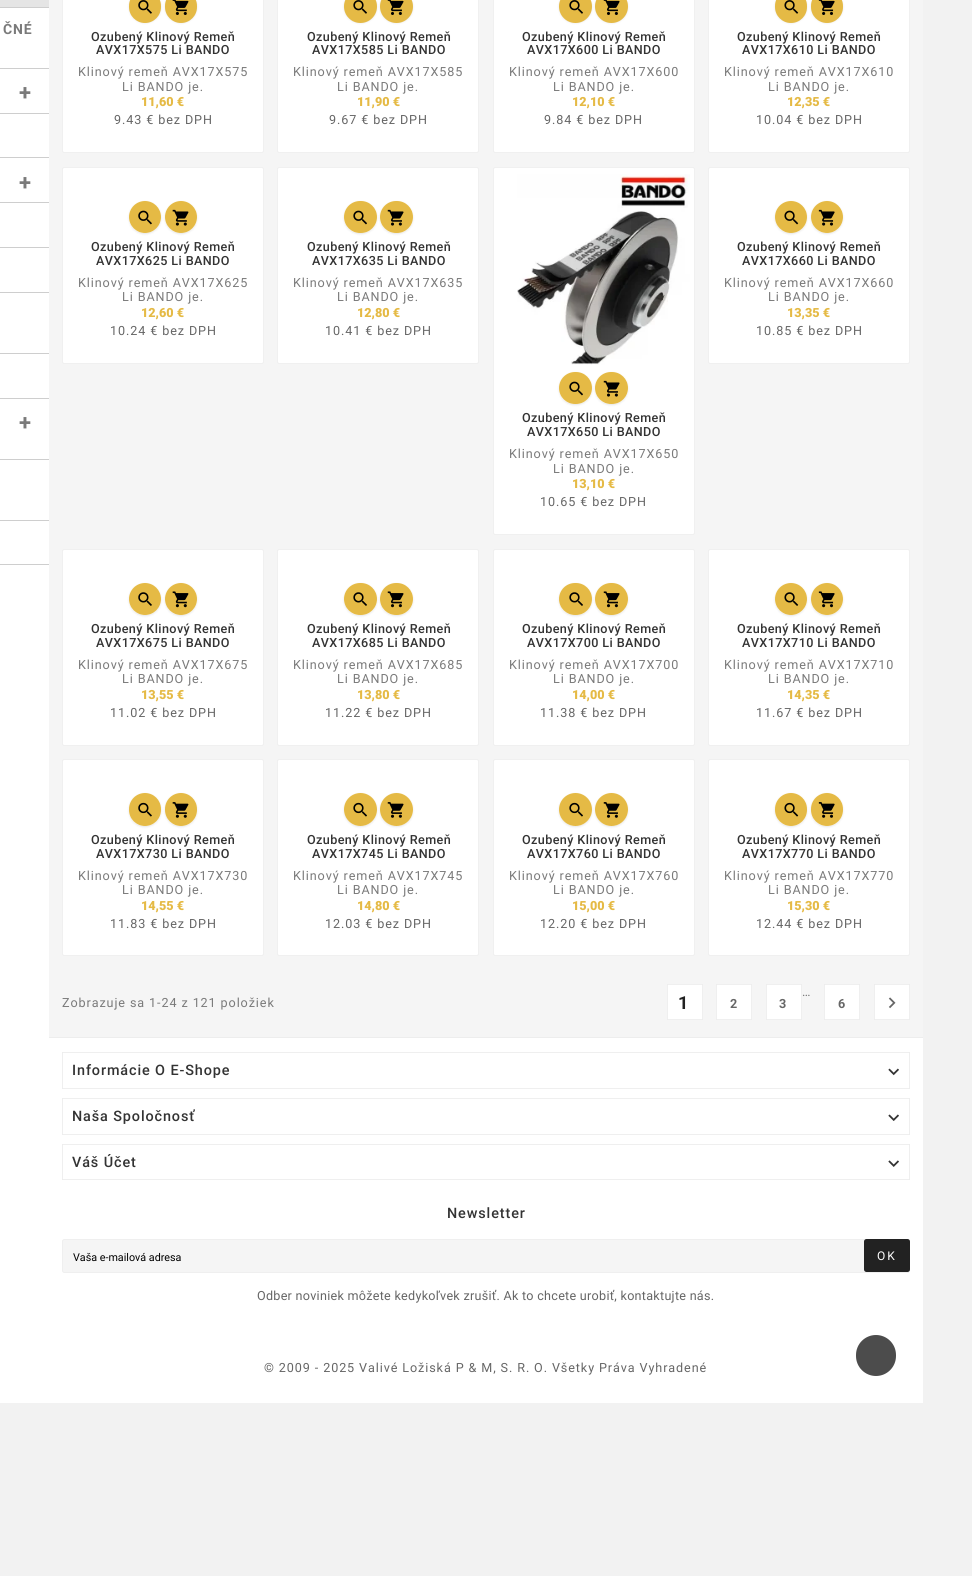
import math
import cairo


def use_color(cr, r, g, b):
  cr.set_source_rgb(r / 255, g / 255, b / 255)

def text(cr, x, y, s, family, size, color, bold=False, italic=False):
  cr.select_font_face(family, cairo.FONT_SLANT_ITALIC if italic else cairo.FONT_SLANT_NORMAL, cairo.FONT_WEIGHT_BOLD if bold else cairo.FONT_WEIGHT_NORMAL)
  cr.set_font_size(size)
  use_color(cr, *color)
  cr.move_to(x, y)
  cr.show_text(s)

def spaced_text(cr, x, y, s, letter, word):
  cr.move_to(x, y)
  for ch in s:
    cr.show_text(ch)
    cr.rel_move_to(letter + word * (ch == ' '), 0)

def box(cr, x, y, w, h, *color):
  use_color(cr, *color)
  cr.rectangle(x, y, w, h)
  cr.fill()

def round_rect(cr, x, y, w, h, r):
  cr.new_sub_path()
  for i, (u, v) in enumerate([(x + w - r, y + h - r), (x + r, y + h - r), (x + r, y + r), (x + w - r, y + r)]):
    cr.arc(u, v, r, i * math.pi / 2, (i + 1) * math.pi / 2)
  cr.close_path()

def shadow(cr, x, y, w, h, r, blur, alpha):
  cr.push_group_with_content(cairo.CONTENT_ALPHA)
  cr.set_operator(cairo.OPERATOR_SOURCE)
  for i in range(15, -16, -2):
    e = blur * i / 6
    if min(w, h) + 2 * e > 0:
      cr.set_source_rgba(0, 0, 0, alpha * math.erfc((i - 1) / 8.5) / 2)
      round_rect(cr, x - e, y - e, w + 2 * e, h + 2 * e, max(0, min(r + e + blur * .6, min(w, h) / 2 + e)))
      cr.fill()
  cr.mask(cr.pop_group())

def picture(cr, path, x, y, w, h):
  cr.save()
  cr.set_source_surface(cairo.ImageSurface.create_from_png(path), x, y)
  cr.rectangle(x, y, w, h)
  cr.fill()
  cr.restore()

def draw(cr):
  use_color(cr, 242, 242, 242)
  cr.paint()
  box(cr, 49, 0, 874, 1037, 245, 245, 245)
  box(cr, 0, 8, 49, 1395, 255, 255, 255)
  box(cr, 0, 0, 49, 7, 229, 229, 229)
  box(cr, 0, 7, 49, 1, 206, 206, 206)
  box(cr, 0, 68, 49, 1, 206, 206, 206)
  box(cr, 0, 113, 49, 1, 206, 206, 206)
  box(cr, 0, 157, 49, 1, 206, 206, 206)
  box(cr, 0, 202, 49, 1, 206, 206, 206)
  box(cr, 0, 247, 49, 1, 206, 206, 206)
  box(cr, 0, 292, 49, 1, 206, 206, 206)
  box(cr, 0, 353, 49, 1, 206, 206, 206)
  box(cr, 0, 398, 49, 1, 206, 206, 206)
  box(cr, 0, 459, 49, 1, 206, 206, 206)
  box(cr, 0, 520, 49, 1, 206, 206, 206)
  box(cr, 0, 564, 49, 1, 206, 206, 206)
  use_color(cr, 255, 255, 255)
  round_rect(cr, 62, -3, 202, 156, 2.5)
  cr.fill()
  round_rect(cr, 62.45, -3.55, 201.1, 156.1, 2.05)
  cr.set_source_rgba(0, 0, 0, 0.07)
  cr.set_line_width(0.9)
  cr.stroke()
  use_color(cr, 0, 0, 0)
  shadow(cr, 129, -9, 32, 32, 16, 1, 0.1)
  use_color(cr, 229, 186, 69)
  round_rect(cr, 129, -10, 32, 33, 16)
  cr.fill()
  picture(cr, "img_01.png", 138, 0, 14, 14)
  use_color(cr, 0, 0, 0)
  shadow(cr, 165, -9, 32, 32, 16, 1, 0.1)
  use_color(cr, 229, 186, 69)
  round_rect(cr, 165, -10, 32, 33, 16)
  cr.fill()
  picture(cr, "img_02.png", 172, 0, 17, 15)
  use_color(cr, 255, 255, 255)
  round_rect(cr, 277, -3, 202, 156, 2.5)
  cr.fill()
  round_rect(cr, 277.45, -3.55, 201.1, 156.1, 2.05)
  cr.set_source_rgba(0, 0, 0, 0.07)
  cr.stroke()
  use_color(cr, 0, 0, 0)
  shadow(cr, 380, -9, 33, 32, 16, 1, 0.1)
  use_color(cr, 229, 186, 69)
  cr.arc(396.5, 6.5, 16.5, 0, 2 * math.pi)
  cr.fill()
  use_color(cr, 0, 0, 0)
  shadow(cr, 344, -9, 33, 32, 16, 1, 0.1)
  use_color(cr, 229, 186, 69)
  cr.arc(360.5, 6.5, 16.5, 0, 2 * math.pi)
  cr.fill()
  picture(cr, "img_03.png", 353, 0, 14, 14)
  picture(cr, "img_04.png", 387, 0, 17, 15)
  use_color(cr, 255, 255, 255)
  round_rect(cr, 493, -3, 202, 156, 2.5)
  cr.fill()
  round_rect(cr, 493.45, -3.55, 201.1, 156.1, 2.05)
  cr.set_source_rgba(0, 0, 0, 0.07)
  cr.stroke()
  use_color(cr, 0, 0, 0)
  shadow(cr, 595, -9, 33, 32, 16, 1, 0.1)
  use_color(cr, 229, 186, 69)
  cr.arc(611.5, 6.5, 16.5, 0, 2 * math.pi)
  cr.fill()
  use_color(cr, 0, 0, 0)
  shadow(cr, 559, -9, 33, 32, 16, 1, 0.1)
  use_color(cr, 229, 186, 69)
  cr.arc(575.5, 6.5, 16.5, 0, 2 * math.pi)
  cr.fill()
  picture(cr, "img_03.png", 569, 0, 14, 14)
  picture(cr, "img_04.png", 603, 0, 17, 15)
  use_color(cr, 255, 255, 255)
  round_rect(cr, 708, -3, 202, 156, 2.5)
  cr.fill()
  round_rect(cr, 708.45, -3.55, 201.1, 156.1, 2.05)
  cr.set_source_rgba(0, 0, 0, 0.07)
  cr.stroke()
  use_color(cr, 0, 0, 0)
  shadow(cr, 775, -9, 32, 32, 16, 1, 0.1)
  use_color(cr, 229, 186, 69)
  round_rect(cr, 775, -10, 32, 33, 16)
  cr.fill()
  picture(cr, "img_05.png", 784, 0, 15, 14)
  use_color(cr, 0, 0, 0)
  shadow(cr, 811, -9, 32, 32, 16, 1, 0.1)
  use_color(cr, 229, 186, 69)
  round_rect(cr, 811, -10, 32, 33, 16)
  cr.fill()
  picture(cr, "img_06.png", 818, 0, 17, 15)
  use_color(cr, 255, 255, 255)
  round_rect(cr, 62, 167, 202, 197, 2.5)
  cr.fill()
  round_rect(cr, 62.45, 167.45, 201.1, 196.1, 2.05)
  cr.set_source_rgba(0, 0, 0, 0.07)
  cr.stroke()
  cr.save()
  cr.set_fill_rule(cairo.FILL_RULE_EVEN_ODD)
  cr.new_path()
  cr.move_to(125, 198)
  cr.line_to(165, 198)
  cr.line_to(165, 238)
  cr.line_to(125, 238)
  cr.close_path()
  cr.move_to(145, 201)
  cr.curve_to(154, 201, 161, 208, 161, 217)
  cr.curve_to(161, 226, 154, 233, 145, 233)
  cr.curve_to(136, 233, 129, 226, 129, 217)
  cr.curve_to(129, 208, 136, 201, 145, 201)
  cr.close_path()
  cr.clip()
  use_color(cr, 0, 0, 0)
  shadow(cr, 129, 202, 32, 32, 16, 1, 0.1)
  cr.restore()
  use_color(cr, 229, 186, 69)
  cr.arc(145, 217, 16, 0, 2 * math.pi)
  cr.fill()
  picture(cr, "img_07.png", 138, 210, 14, 15)
  cr.save()
  cr.set_fill_rule(cairo.FILL_RULE_EVEN_ODD)
  cr.new_path()
  cr.move_to(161, 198)
  cr.line_to(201, 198)
  cr.line_to(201, 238)
  cr.line_to(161, 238)
  cr.close_path()
  cr.move_to(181, 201)
  cr.curve_to(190, 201, 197, 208, 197, 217)
  cr.curve_to(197, 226, 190, 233, 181, 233)
  cr.curve_to(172, 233, 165, 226, 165, 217)
  cr.curve_to(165, 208, 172, 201, 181, 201)
  cr.close_path()
  cr.clip()
  use_color(cr, 0, 0, 0)
  shadow(cr, 165, 202, 32, 32, 16, 1, 0.1)
  cr.restore()
  cr.arc(181, 217, 16, 0, 2 * math.pi)
  cr.fill()
  picture(cr, "img_08.png", 172, 209, 17, 17)
  use_color(cr, 255, 255, 255)
  round_rect(cr, 277, 167, 202, 197, 2.5)
  cr.fill()
  round_rect(cr, 277.45, 167.45, 201.1, 196.1, 2.05)
  cr.set_source_rgba(0, 0, 0, 0.07)
  cr.stroke()
  cr.save()
  cr.set_fill_rule(cairo.FILL_RULE_EVEN_ODD)
  cr.new_path()
  cr.move_to(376, 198)
  cr.line_to(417, 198)
  cr.line_to(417, 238)
  cr.line_to(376, 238)
  cr.close_path()
  cr.move_to(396, 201)
  cr.line_to(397, 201)
  cr.curve_to(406, 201, 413, 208, 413, 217)
  cr.curve_to(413, 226, 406, 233, 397, 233)
  cr.line_to(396, 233)
  cr.curve_to(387, 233, 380, 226, 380, 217)
  cr.curve_to(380, 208, 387, 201, 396, 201)
  cr.close_path()
  cr.clip()
  use_color(cr, 0, 0, 0)
  shadow(cr, 380, 202, 33, 32, 16, 1, 0.1)
  cr.restore()
  use_color(cr, 229, 186, 69)
  round_rect(cr, 380, 201, 33, 32, 16)
  cr.fill()
  cr.save()
  cr.set_fill_rule(cairo.FILL_RULE_EVEN_ODD)
  cr.new_path()
  cr.move_to(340, 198)
  cr.line_to(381, 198)
  cr.line_to(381, 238)
  cr.line_to(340, 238)
  cr.close_path()
  cr.move_to(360, 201)
  cr.line_to(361, 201)
  cr.curve_to(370, 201, 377, 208, 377, 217)
  cr.curve_to(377, 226, 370, 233, 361, 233)
  cr.line_to(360, 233)
  cr.curve_to(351, 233, 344, 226, 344, 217)
  cr.curve_to(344, 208, 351, 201, 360, 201)
  cr.close_path()
  cr.clip()
  use_color(cr, 0, 0, 0)
  shadow(cr, 344, 202, 33, 32, 16, 1, 0.1)
  cr.restore()
  round_rect(cr, 344, 201, 33, 32, 16)
  cr.fill()
  picture(cr, "img_09.png", 353, 210, 14, 15)
  picture(cr, "img_10.png", 387, 209, 17, 17)
  use_color(cr, 255, 255, 255)
  round_rect(cr, 708, 167, 202, 197, 2.5)
  cr.fill()
  round_rect(cr, 708.45, 167.45, 201.1, 196.1, 2.05)
  cr.set_source_rgba(0, 0, 0, 0.07)
  cr.stroke()
  cr.save()
  cr.set_fill_rule(cairo.FILL_RULE_EVEN_ODD)
  cr.new_path()
  cr.move_to(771, 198)
  cr.line_to(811, 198)
  cr.line_to(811, 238)
  cr.line_to(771, 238)
  cr.close_path()
  cr.move_to(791, 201)
  cr.curve_to(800, 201, 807, 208, 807, 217)
  cr.curve_to(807, 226, 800, 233, 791, 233)
  cr.curve_to(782, 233, 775, 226, 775, 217)
  cr.curve_to(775, 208, 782, 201, 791, 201)
  cr.close_path()
  cr.clip()
  use_color(cr, 0, 0, 0)
  shadow(cr, 775, 202, 32, 32, 16, 1, 0.1)
  cr.restore()
  use_color(cr, 229, 186, 69)
  cr.arc(791, 217, 16, 0, 2 * math.pi)
  cr.fill()
  picture(cr, "img_11.png", 784, 210, 15, 15)
  cr.save()
  cr.set_fill_rule(cairo.FILL_RULE_EVEN_ODD)
  cr.new_path()
  cr.move_to(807, 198)
  cr.line_to(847, 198)
  cr.line_to(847, 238)
  cr.line_to(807, 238)
  cr.close_path()
  cr.move_to(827, 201)
  cr.curve_to(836, 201, 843, 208, 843, 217)
  cr.curve_to(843, 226, 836, 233, 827, 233)
  cr.curve_to(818, 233, 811, 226, 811, 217)
  cr.curve_to(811, 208, 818, 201, 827, 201)
  cr.close_path()
  cr.clip()
  use_color(cr, 0, 0, 0)
  shadow(cr, 811, 202, 32, 32, 16, 1, 0.1)
  cr.restore()
  cr.arc(827, 217, 16, 0, 2 * math.pi)
  cr.fill()
  picture(cr, "img_12.png", 818, 209, 17, 17)
  use_color(cr, 255, 255, 255)
  round_rect(cr, 493, 167, 202, 368, 2.5)
  cr.fill()
  round_rect(cr, 493.45, 167.45, 201.1, 367.1, 2.05)
  cr.set_source_rgba(0, 0, 0, 0.07)
  cr.stroke()
  picture(cr, "img_13.png", 517, 174, 173, 191)
  cr.save()
  cr.set_fill_rule(cairo.FILL_RULE_EVEN_ODD)
  cr.new_path()
  cr.move_to(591, 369)
  cr.line_to(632, 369)
  cr.line_to(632, 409)
  cr.line_to(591, 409)
  cr.close_path()
  cr.move_to(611, 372)
  cr.line_to(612, 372)
  cr.curve_to(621, 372, 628, 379, 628, 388)
  cr.curve_to(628, 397, 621, 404, 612, 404)
  cr.line_to(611, 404)
  cr.curve_to(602, 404, 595, 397, 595, 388)
  cr.curve_to(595, 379, 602, 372, 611, 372)
  cr.close_path()
  cr.clip()
  use_color(cr, 0, 0, 0)
  shadow(cr, 595, 373, 33, 32, 16, 1, 0.1)
  cr.restore()
  use_color(cr, 229, 186, 69)
  round_rect(cr, 595, 372, 33, 32, 16)
  cr.fill()
  cr.save()
  cr.set_fill_rule(cairo.FILL_RULE_EVEN_ODD)
  cr.new_path()
  cr.move_to(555, 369)
  cr.line_to(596, 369)
  cr.line_to(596, 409)
  cr.line_to(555, 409)
  cr.close_path()
  cr.move_to(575, 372)
  cr.line_to(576, 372)
  cr.curve_to(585, 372, 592, 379, 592, 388)
  cr.curve_to(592, 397, 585, 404, 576, 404)
  cr.line_to(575, 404)
  cr.curve_to(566, 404, 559, 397, 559, 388)
  cr.curve_to(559, 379, 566, 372, 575, 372)
  cr.close_path()
  cr.clip()
  use_color(cr, 0, 0, 0)
  shadow(cr, 559, 373, 33, 32, 16, 1, 0.1)
  cr.restore()
  round_rect(cr, 559, 372, 33, 32, 16)
  cr.fill()
  picture(cr, "img_09.png", 569, 381, 14, 15)
  picture(cr, "img_10.png", 603, 380, 17, 17)
  use_color(cr, 255, 255, 255)
  round_rect(cr, 62, 549, 202, 197, 2.5)
  cr.fill()
  round_rect(cr, 62.45, 549.45, 201.1, 196.1, 2.05)
  cr.set_source_rgba(0, 0, 0, 0.07)
  cr.stroke()
  cr.save()
  cr.set_fill_rule(cairo.FILL_RULE_EVEN_ODD)
  cr.new_path()
  cr.move_to(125, 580)
  cr.line_to(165, 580)
  cr.line_to(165, 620)
  cr.line_to(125, 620)
  cr.close_path()
  cr.move_to(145, 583)
  cr.curve_to(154, 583, 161, 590, 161, 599)
  cr.curve_to(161, 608, 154, 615, 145, 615)
  cr.curve_to(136, 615, 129, 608, 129, 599)
  cr.curve_to(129, 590, 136, 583, 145, 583)
  cr.close_path()
  cr.clip()
  use_color(cr, 0, 0, 0)
  shadow(cr, 129, 584, 32, 32, 16, 1, 0.1)
  cr.restore()
  use_color(cr, 229, 186, 69)
  cr.arc(145, 599, 16, 0, 2 * math.pi)
  cr.fill()
  picture(cr, "img_14.png", 138, 592, 14, 14)
  cr.save()
  cr.set_fill_rule(cairo.FILL_RULE_EVEN_ODD)
  cr.new_path()
  cr.move_to(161, 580)
  cr.line_to(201, 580)
  cr.line_to(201, 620)
  cr.line_to(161, 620)
  cr.close_path()
  cr.move_to(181, 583)
  cr.curve_to(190, 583, 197, 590, 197, 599)
  cr.curve_to(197, 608, 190, 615, 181, 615)
  cr.curve_to(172, 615, 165, 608, 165, 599)
  cr.curve_to(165, 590, 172, 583, 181, 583)
  cr.close_path()
  cr.clip()
  use_color(cr, 0, 0, 0)
  shadow(cr, 165, 584, 32, 32, 16, 1, 0.1)
  cr.restore()
  cr.arc(181, 599, 16, 0, 2 * math.pi)
  cr.fill()
  picture(cr, "img_15.png", 172, 591, 17, 17)
  use_color(cr, 255, 255, 255)
  round_rect(cr, 277, 549, 202, 197, 2.5)
  cr.fill()
  round_rect(cr, 277.45, 549.45, 201.1, 196.1, 2.05)
  cr.set_source_rgba(0, 0, 0, 0.07)
  cr.stroke()
  cr.save()
  cr.set_fill_rule(cairo.FILL_RULE_EVEN_ODD)
  cr.new_path()
  cr.move_to(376, 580)
  cr.line_to(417, 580)
  cr.line_to(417, 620)
  cr.line_to(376, 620)
  cr.close_path()
  cr.move_to(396, 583)
  cr.line_to(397, 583)
  cr.curve_to(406, 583, 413, 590, 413, 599)
  cr.curve_to(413, 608, 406, 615, 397, 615)
  cr.line_to(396, 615)
  cr.curve_to(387, 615, 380, 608, 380, 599)
  cr.curve_to(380, 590, 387, 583, 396, 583)
  cr.close_path()
  cr.clip()
  use_color(cr, 0, 0, 0)
  shadow(cr, 380, 584, 33, 32, 16, 1, 0.1)
  cr.restore()
  use_color(cr, 229, 186, 69)
  round_rect(cr, 380, 583, 33, 32, 16)
  cr.fill()
  cr.save()
  cr.set_fill_rule(cairo.FILL_RULE_EVEN_ODD)
  cr.new_path()
  cr.move_to(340, 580)
  cr.line_to(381, 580)
  cr.line_to(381, 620)
  cr.line_to(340, 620)
  cr.close_path()
  cr.move_to(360, 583)
  cr.line_to(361, 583)
  cr.curve_to(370, 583, 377, 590, 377, 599)
  cr.curve_to(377, 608, 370, 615, 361, 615)
  cr.line_to(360, 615)
  cr.curve_to(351, 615, 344, 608, 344, 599)
  cr.curve_to(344, 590, 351, 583, 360, 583)
  cr.close_path()
  cr.clip()
  use_color(cr, 0, 0, 0)
  shadow(cr, 344, 584, 33, 32, 16, 1, 0.1)
  cr.restore()
  round_rect(cr, 344, 583, 33, 32, 16)
  cr.fill()
  picture(cr, "img_16.png", 353, 592, 14, 14)
  picture(cr, "img_17.png", 387, 591, 17, 17)
  use_color(cr, 255, 255, 255)
  round_rect(cr, 493, 549, 202, 197, 2.5)
  cr.fill()
  round_rect(cr, 493.45, 549.45, 201.1, 196.1, 2.05)
  cr.set_source_rgba(0, 0, 0, 0.07)
  cr.stroke()
  cr.save()
  cr.set_fill_rule(cairo.FILL_RULE_EVEN_ODD)
  cr.new_path()
  cr.move_to(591, 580)
  cr.line_to(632, 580)
  cr.line_to(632, 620)
  cr.line_to(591, 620)
  cr.close_path()
  cr.move_to(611, 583)
  cr.line_to(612, 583)
  cr.curve_to(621, 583, 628, 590, 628, 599)
  cr.curve_to(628, 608, 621, 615, 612, 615)
  cr.line_to(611, 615)
  cr.curve_to(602, 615, 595, 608, 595, 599)
  cr.curve_to(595, 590, 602, 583, 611, 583)
  cr.close_path()
  cr.clip()
  use_color(cr, 0, 0, 0)
  shadow(cr, 595, 584, 33, 32, 16, 1, 0.1)
  cr.restore()
  use_color(cr, 229, 186, 69)
  round_rect(cr, 595, 583, 33, 32, 16)
  cr.fill()
  cr.save()
  cr.set_fill_rule(cairo.FILL_RULE_EVEN_ODD)
  cr.new_path()
  cr.move_to(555, 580)
  cr.line_to(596, 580)
  cr.line_to(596, 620)
  cr.line_to(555, 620)
  cr.close_path()
  cr.move_to(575, 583)
  cr.line_to(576, 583)
  cr.curve_to(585, 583, 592, 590, 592, 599)
  cr.curve_to(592, 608, 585, 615, 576, 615)
  cr.line_to(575, 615)
  cr.curve_to(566, 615, 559, 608, 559, 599)
  cr.curve_to(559, 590, 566, 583, 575, 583)
  cr.close_path()
  cr.clip()
  use_color(cr, 0, 0, 0)
  shadow(cr, 559, 584, 33, 32, 16, 1, 0.1)
  cr.restore()
  round_rect(cr, 559, 583, 33, 32, 16)
  cr.fill()
  picture(cr, "img_16.png", 569, 592, 14, 14)
  picture(cr, "img_17.png", 603, 591, 17, 17)
  use_color(cr, 255, 255, 255)
  round_rect(cr, 708, 549, 202, 197, 2.5)
  cr.fill()
  round_rect(cr, 708.45, 549.45, 201.1, 196.1, 2.05)
  cr.set_source_rgba(0, 0, 0, 0.07)
  cr.stroke()
  cr.save()
  cr.set_fill_rule(cairo.FILL_RULE_EVEN_ODD)
  cr.new_path()
  cr.move_to(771, 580)
  cr.line_to(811, 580)
  cr.line_to(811, 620)
  cr.line_to(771, 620)
  cr.close_path()
  cr.move_to(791, 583)
  cr.curve_to(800, 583, 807, 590, 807, 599)
  cr.curve_to(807, 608, 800, 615, 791, 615)
  cr.curve_to(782, 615, 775, 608, 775, 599)
  cr.curve_to(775, 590, 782, 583, 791, 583)
  cr.close_path()
  cr.clip()
  use_color(cr, 0, 0, 0)
  shadow(cr, 775, 584, 32, 32, 16, 1, 0.1)
  cr.restore()
  use_color(cr, 229, 186, 69)
  cr.arc(791, 599, 16, 0, 2 * math.pi)
  cr.fill()
  picture(cr, "img_18.png", 784, 592, 15, 14)
  cr.save()
  cr.set_fill_rule(cairo.FILL_RULE_EVEN_ODD)
  cr.new_path()
  cr.move_to(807, 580)
  cr.line_to(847, 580)
  cr.line_to(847, 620)
  cr.line_to(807, 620)
  cr.close_path()
  cr.move_to(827, 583)
  cr.curve_to(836, 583, 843, 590, 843, 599)
  cr.curve_to(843, 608, 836, 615, 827, 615)
  cr.curve_to(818, 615, 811, 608, 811, 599)
  cr.curve_to(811, 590, 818, 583, 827, 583)
  cr.close_path()
  cr.clip()
  use_color(cr, 0, 0, 0)
  shadow(cr, 811, 584, 32, 32, 16, 1, 0.1)
  cr.restore()
  cr.arc(827, 599, 16, 0, 2 * math.pi)
  cr.fill()
  picture(cr, "img_19.png", 818, 591, 17, 17)
  use_color(cr, 255, 255, 255)
  round_rect(cr, 62, 759, 202, 197, 2.5)
  cr.fill()
  round_rect(cr, 62.45, 759.45, 201.1, 196.1, 2.05)
  cr.set_source_rgba(0, 0, 0, 0.07)
  cr.stroke()
  cr.save()
  cr.set_fill_rule(cairo.FILL_RULE_EVEN_ODD)
  cr.new_path()
  cr.move_to(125, 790)
  cr.line_to(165, 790)
  cr.line_to(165, 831)
  cr.line_to(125, 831)
  cr.close_path()
  cr.move_to(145, 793)
  cr.curve_to(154, 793, 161, 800, 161, 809)
  cr.line_to(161, 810)
  cr.curve_to(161, 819, 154, 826, 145, 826)
  cr.curve_to(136, 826, 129, 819, 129, 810)
  cr.line_to(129, 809)
  cr.curve_to(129, 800, 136, 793, 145, 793)
  cr.close_path()
  cr.clip()
  use_color(cr, 0, 0, 0)
  shadow(cr, 129, 794, 32, 33, 16, 1, 0.1)
  cr.restore()
  use_color(cr, 229, 186, 69)
  round_rect(cr, 129, 793, 32, 33, 16)
  cr.fill()
  picture(cr, "img_20.png", 138, 802, 14, 15)
  cr.save()
  cr.set_fill_rule(cairo.FILL_RULE_EVEN_ODD)
  cr.new_path()
  cr.move_to(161, 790)
  cr.line_to(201, 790)
  cr.line_to(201, 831)
  cr.line_to(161, 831)
  cr.close_path()
  cr.move_to(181, 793)
  cr.curve_to(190, 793, 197, 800, 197, 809)
  cr.line_to(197, 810)
  cr.curve_to(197, 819, 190, 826, 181, 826)
  cr.curve_to(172, 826, 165, 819, 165, 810)
  cr.line_to(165, 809)
  cr.curve_to(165, 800, 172, 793, 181, 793)
  cr.close_path()
  cr.clip()
  use_color(cr, 0, 0, 0)
  shadow(cr, 165, 794, 32, 33, 16, 1, 0.1)
  cr.restore()
  round_rect(cr, 165, 793, 32, 33, 16)
  cr.fill()
  picture(cr, "img_21.png", 172, 802, 17, 16)
  use_color(cr, 255, 255, 255)
  round_rect(cr, 277, 759, 202, 197, 2.5)
  cr.fill()
  round_rect(cr, 277.45, 759.45, 201.1, 196.1, 2.05)
  cr.set_source_rgba(0, 0, 0, 0.07)
  cr.stroke()
  cr.save()
  cr.set_fill_rule(cairo.FILL_RULE_EVEN_ODD)
  cr.new_path()
  cr.move_to(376, 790)
  cr.line_to(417, 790)
  cr.line_to(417, 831)
  cr.line_to(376, 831)
  cr.close_path()
  cr.move_to(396.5, 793)
  cr.curve_to(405.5, 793, 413, 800.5, 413, 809.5)
  cr.curve_to(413, 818.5, 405.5, 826, 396.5, 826)
  cr.curve_to(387.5, 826, 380, 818.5, 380, 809.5)
  cr.curve_to(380, 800.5, 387.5, 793, 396.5, 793)
  cr.close_path()
  cr.clip()
  use_color(cr, 0, 0, 0)
  shadow(cr, 380, 794, 33, 33, 16.5, 1, 0.1)
  cr.restore()
  use_color(cr, 229, 186, 69)
  cr.arc(396.5, 809.5, 16.5, 0, 2 * math.pi)
  cr.fill()
  cr.save()
  cr.set_fill_rule(cairo.FILL_RULE_EVEN_ODD)
  cr.new_path()
  cr.move_to(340, 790)
  cr.line_to(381, 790)
  cr.line_to(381, 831)
  cr.line_to(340, 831)
  cr.close_path()
  cr.move_to(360.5, 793)
  cr.curve_to(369.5, 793, 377, 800.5, 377, 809.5)
  cr.curve_to(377, 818.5, 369.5, 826, 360.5, 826)
  cr.curve_to(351.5, 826, 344, 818.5, 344, 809.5)
  cr.curve_to(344, 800.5, 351.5, 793, 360.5, 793)
  cr.close_path()
  cr.clip()
  use_color(cr, 0, 0, 0)
  shadow(cr, 344, 794, 33, 33, 16.5, 1, 0.1)
  cr.restore()
  cr.arc(360.5, 809.5, 16.5, 0, 2 * math.pi)
  cr.fill()
  picture(cr, "img_22.png", 353, 802, 14, 15)
  picture(cr, "img_23.png", 387, 802, 17, 16)
  use_color(cr, 255, 255, 255)
  round_rect(cr, 493, 759, 202, 197, 2.5)
  cr.fill()
  round_rect(cr, 493.45, 759.45, 201.1, 196.1, 2.05)
  cr.set_source_rgba(0, 0, 0, 0.07)
  cr.stroke()
  cr.save()
  cr.set_fill_rule(cairo.FILL_RULE_EVEN_ODD)
  cr.new_path()
  cr.move_to(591, 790)
  cr.line_to(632, 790)
  cr.line_to(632, 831)
  cr.line_to(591, 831)
  cr.close_path()
  cr.move_to(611.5, 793)
  cr.curve_to(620.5, 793, 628, 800.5, 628, 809.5)
  cr.curve_to(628, 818.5, 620.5, 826, 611.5, 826)
  cr.curve_to(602.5, 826, 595, 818.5, 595, 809.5)
  cr.curve_to(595, 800.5, 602.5, 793, 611.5, 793)
  cr.close_path()
  cr.clip()
  use_color(cr, 0, 0, 0)
  shadow(cr, 595, 794, 33, 33, 16.5, 1, 0.1)
  cr.restore()
  use_color(cr, 229, 186, 69)
  cr.arc(611.5, 809.5, 16.5, 0, 2 * math.pi)
  cr.fill()
  cr.save()
  cr.set_fill_rule(cairo.FILL_RULE_EVEN_ODD)
  cr.new_path()
  cr.move_to(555, 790)
  cr.line_to(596, 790)
  cr.line_to(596, 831)
  cr.line_to(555, 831)
  cr.close_path()
  cr.move_to(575.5, 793)
  cr.curve_to(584.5, 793, 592, 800.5, 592, 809.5)
  cr.curve_to(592, 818.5, 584.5, 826, 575.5, 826)
  cr.curve_to(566.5, 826, 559, 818.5, 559, 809.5)
  cr.curve_to(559, 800.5, 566.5, 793, 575.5, 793)
  cr.close_path()
  cr.clip()
  use_color(cr, 0, 0, 0)
  shadow(cr, 559, 794, 33, 33, 16.5, 1, 0.1)
  cr.restore()
  cr.arc(575.5, 809.5, 16.5, 0, 2 * math.pi)
  cr.fill()
  picture(cr, "img_22.png", 569, 802, 14, 15)
  picture(cr, "img_23.png", 603, 802, 17, 16)
  use_color(cr, 255, 255, 255)
  round_rect(cr, 708, 759, 202, 197, 2.5)
  cr.fill()
  round_rect(cr, 708.45, 759.45, 201.1, 196.1, 2.05)
  cr.set_source_rgba(0, 0, 0, 0.07)
  cr.stroke()
  cr.save()
  cr.set_fill_rule(cairo.FILL_RULE_EVEN_ODD)
  cr.new_path()
  cr.move_to(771, 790)
  cr.line_to(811, 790)
  cr.line_to(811, 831)
  cr.line_to(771, 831)
  cr.close_path()
  cr.move_to(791, 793)
  cr.curve_to(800, 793, 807, 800, 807, 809)
  cr.line_to(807, 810)
  cr.curve_to(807, 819, 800, 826, 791, 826)
  cr.curve_to(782, 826, 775, 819, 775, 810)
  cr.line_to(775, 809)
  cr.curve_to(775, 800, 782, 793, 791, 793)
  cr.close_path()
  cr.clip()
  use_color(cr, 0, 0, 0)
  shadow(cr, 775, 794, 32, 33, 16, 1, 0.1)
  cr.restore()
  use_color(cr, 229, 186, 69)
  round_rect(cr, 775, 793, 32, 33, 16)
  cr.fill()
  picture(cr, "img_24.png", 784, 802, 15, 15)
  cr.save()
  cr.set_fill_rule(cairo.FILL_RULE_EVEN_ODD)
  cr.new_path()
  cr.move_to(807, 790)
  cr.line_to(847, 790)
  cr.line_to(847, 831)
  cr.line_to(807, 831)
  cr.close_path()
  cr.move_to(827, 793)
  cr.curve_to(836, 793, 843, 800, 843, 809)
  cr.line_to(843, 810)
  cr.curve_to(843, 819, 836, 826, 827, 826)
  cr.curve_to(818, 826, 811, 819, 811, 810)
  cr.line_to(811, 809)
  cr.curve_to(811, 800, 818, 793, 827, 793)
  cr.close_path()
  cr.clip()
  use_color(cr, 0, 0, 0)
  shadow(cr, 811, 794, 32, 33, 16, 1, 0.1)
  cr.restore()
  round_rect(cr, 811, 793, 32, 33, 16)
  cr.fill()
  picture(cr, "img_25.png", 818, 802, 17, 16)
  use_color(cr, 255, 255, 255)
  cr.rectangle(874.45, 984.45, 35.1, 35.1)
  cr.fill_preserve()
  use_color(cr, 237, 237, 237)
  cr.stroke()
  picture(cr, "img_26.png", 888, 997, 8, 12)
  use_color(cr, 255, 255, 255)
  cr.rectangle(667.45, 984.45, 35.1, 35.1)
  cr.fill_preserve()
  use_color(cr, 237, 237, 237)
  cr.stroke()
  use_color(cr, 255, 255, 255)
  cr.rectangle(716.45, 984.45, 35.1, 35.1)
  cr.fill_preserve()
  use_color(cr, 237, 237, 237)
  cr.stroke()
  use_color(cr, 255, 255, 255)
  cr.rectangle(766.45, 984.45, 35.1, 35.1)
  cr.fill_preserve()
  use_color(cr, 237, 237, 237)
  cr.stroke()
  use_color(cr, 255, 255, 255)
  cr.rectangle(824.45, 984.45, 35.1, 35.1)
  cr.fill_preserve()
  use_color(cr, 237, 237, 237)
  cr.stroke()
  box(cr, 49, 1038, 874, 365, 255, 255, 255)
  box(cr, 49, 1037, 874, 1, 237, 237, 237)
  cr.rectangle(62.45, 1052.45, 847.1, 36.1)
  cr.stroke()
  picture(cr, "img_27.png", 888, 1068, 11, 8)
  cr.rectangle(62.45, 1098.45, 847.1, 36.1)
  cr.stroke()
  picture(cr, "img_28.png", 888, 1114, 11, 7)
  cr.rectangle(62.45, 1144.45, 847.1, 35.1)
  cr.stroke()
  picture(cr, "img_29.png", 888, 1160, 11, 7)
  use_color(cr, 245, 245, 245)
  round_rect(cr, 62.45, 1239.45, 847.1, 33.1, 2.05)
  cr.fill_preserve()
  use_color(cr, 238, 238, 238)
  cr.stroke()
  use_color(cr, 34, 34, 34)
  round_rect(cr, 864, 1239, 46, 33, 2.5)
  cr.fill()
  use_color(cr, 76, 76, 76)
  round_rect(cr, 856, 1335, 40, 41, 20)
  cr.fill()
  cr.select_font_face("Roboto", cairo.FONT_SLANT_NORMAL, cairo.FONT_WEIGHT_BOLD)
  cr.set_font_size(14)
  use_color(cr, 122, 122, 122)
  spaced_text(cr, 3, 34, "ČNÉ", 0.9, 0)
  cr.set_font_size(22)
  spaced_text(cr, 19, 100, "+", 0.9, 0)
  spaced_text(cr, 19, 190, "+", 0.9, 0)
  spaced_text(cr, 19, 430, "+", 0.9, 0)
  cr.select_font_face("Roboto Medium")
  cr.set_font_size(12.6)
  use_color(cr, 51, 51, 51)
  spaced_text(cr, 91, 41, "Ozubený Klinový Remeň", 0.4, 0)
  spaced_text(cr, 96, 54, "AVX17X575 Li BANDO", 0.4, 0)
  cr.select_font_face("Roboto")
  use_color(cr, 122, 122, 122)
  spaced_text(cr, 78, 76, "Klinový remeň AVX17X575", 0.9, 0)
  spaced_text(cr, 122, 91, "Li BANDO je.", 0.9, 0)
  text(cr, 141, 106, "11,60 €", "Roboto Black", 12.6, (229, 186, 69))
  cr.select_font_face("Roboto")
  use_color(cr, 102, 102, 102)
  spaced_text(cr, 114, 124, "9.43 € bez DPH", 0.9, 0)
  cr.select_font_face("Roboto Medium")
  use_color(cr, 51, 51, 51)
  spaced_text(cr, 307, 41, "Ozubený Klinový Remeň", 0.4, 0)
  spaced_text(cr, 312, 54, "AVX17X585 Li BANDO", 0.4, 0)
  cr.select_font_face("Roboto")
  use_color(cr, 122, 122, 122)
  spaced_text(cr, 293, 76, "Klinový remeň AVX17X585", 0.9, 0)
  spaced_text(cr, 337, 91, "Li BANDO je.", 0.9, 0)
  text(cr, 357, 106, "11,90 €", "Roboto Black", 12.6, (229, 186, 69))
  cr.select_font_face("Roboto")
  use_color(cr, 102, 102, 102)
  spaced_text(cr, 329, 124, "9.67 € bez DPH", 0.9, 0)
  cr.select_font_face("Roboto Medium")
  use_color(cr, 51, 51, 51)
  spaced_text(cr, 522, 41, "Ozubený Klinový Remeň", 0.4, 0)
  spaced_text(cr, 527, 54, "AVX17X600 Li BANDO", 0.4, 0)
  cr.select_font_face("Roboto")
  use_color(cr, 122, 122, 122)
  spaced_text(cr, 509, 76, "Klinový remeň AVX17X600", 0.9, 0)
  spaced_text(cr, 553, 91, "Li BANDO je.", 0.9, 0)
  text(cr, 572, 106, "12,10 €", "Roboto Black", 12.6, (229, 186, 69))
  cr.select_font_face("Roboto")
  use_color(cr, 102, 102, 102)
  spaced_text(cr, 544, 124, "9.84 € bez DPH", 0.9, 0)
  cr.select_font_face("Roboto Medium")
  use_color(cr, 51, 51, 51)
  spaced_text(cr, 737, 41, "Ozubený Klinový Remeň", 0.4, 0)
  spaced_text(cr, 742, 54, "AVX17X610 Li BANDO", 0.4, 0)
  cr.select_font_face("Roboto")
  use_color(cr, 122, 122, 122)
  spaced_text(cr, 724, 76, "Klinový remeň AVX17X610", 0.9, 0)
  spaced_text(cr, 768, 91, "Li BANDO je.", 0.9, 0)
  text(cr, 787, 106, "12,35 €", "Roboto Black", 12.6, (229, 186, 69))
  cr.select_font_face("Roboto")
  use_color(cr, 102, 102, 102)
  spaced_text(cr, 756, 124, "10.04 € bez DPH", 0.9, 0)
  cr.select_font_face("Roboto Medium")
  use_color(cr, 51, 51, 51)
  spaced_text(cr, 91, 251, "Ozubený Klinový Remeň", 0.4, 0)
  spaced_text(cr, 96, 265, "AVX17X625 Li BANDO", 0.4, 0)
  cr.select_font_face("Roboto")
  use_color(cr, 122, 122, 122)
  spaced_text(cr, 78, 287, "Klinový remeň AVX17X625", 0.9, 0)
  spaced_text(cr, 122, 301, "Li BANDO je.", 0.9, 0)
  text(cr, 141, 317, "12,60 €", "Roboto Black", 12.6, (229, 186, 69))
  cr.select_font_face("Roboto")
  use_color(cr, 102, 102, 102)
  spaced_text(cr, 110, 335, "10.24 € bez DPH", 0.9, 0)
  cr.select_font_face("Roboto Medium")
  use_color(cr, 51, 51, 51)
  spaced_text(cr, 307, 251, "Ozubený Klinový Remeň", 0.4, 0)
  spaced_text(cr, 312, 265, "AVX17X635 Li BANDO", 0.4, 0)
  cr.select_font_face("Roboto")
  use_color(cr, 122, 122, 122)
  spaced_text(cr, 293, 287, "Klinový remeň AVX17X635", 0.9, 0)
  spaced_text(cr, 337, 301, "Li BANDO je.", 0.9, 0)
  text(cr, 357, 317, "12,80 €", "Roboto Black", 12.6, (229, 186, 69))
  cr.select_font_face("Roboto")
  use_color(cr, 102, 102, 102)
  spaced_text(cr, 325, 335, "10.41 € bez DPH", 0.9, 0)
  cr.select_font_face("Roboto Medium")
  use_color(cr, 51, 51, 51)
  spaced_text(cr, 737, 251, "Ozubený Klinový Remeň", 0.4, 0)
  spaced_text(cr, 742, 265, "AVX17X660 Li BANDO", 0.4, 0)
  cr.select_font_face("Roboto")
  use_color(cr, 122, 122, 122)
  spaced_text(cr, 724, 287, "Klinový remeň AVX17X660", 0.9, 0)
  spaced_text(cr, 768, 301, "Li BANDO je.", 0.9, 0)
  text(cr, 787, 317, "13,35 €", "Roboto Black", 12.6, (229, 186, 69))
  cr.select_font_face("Roboto")
  use_color(cr, 102, 102, 102)
  spaced_text(cr, 756, 335, "10.85 € bez DPH", 0.9, 0)
  cr.select_font_face("Roboto Medium")
  use_color(cr, 51, 51, 51)
  spaced_text(cr, 522, 422, "Ozubený Klinový Remeň", 0.4, 0)
  spaced_text(cr, 527, 436, "AVX17X650 Li BANDO", 0.4, 0)
  cr.select_font_face("Roboto")
  use_color(cr, 122, 122, 122)
  spaced_text(cr, 509, 458, "Klinový remeň AVX17X650", 0.9, 0)
  spaced_text(cr, 553, 473, "Li BANDO je.", 0.9, 0)
  text(cr, 572, 488, "13,10 €", "Roboto Black", 12.6, (229, 186, 69))
  cr.select_font_face("Roboto")
  use_color(cr, 102, 102, 102)
  spaced_text(cr, 540, 506, "10.65 € bez DPH", 0.9, 0)
  cr.select_font_face("Roboto Medium")
  use_color(cr, 51, 51, 51)
  spaced_text(cr, 91, 633, "Ozubený Klinový Remeň", 0.4, 0)
  spaced_text(cr, 96, 647, "AVX17X675 Li BANDO", 0.4, 0)
  cr.select_font_face("Roboto")
  use_color(cr, 122, 122, 122)
  spaced_text(cr, 78, 669, "Klinový remeň AVX17X675", 0.9, 0)
  spaced_text(cr, 122, 683, "Li BANDO je.", 0.9, 0)
  text(cr, 141, 699, "13,55 €", "Roboto Black", 12.6, (229, 186, 69))
  cr.select_font_face("Roboto")
  use_color(cr, 102, 102, 102)
  spaced_text(cr, 110, 717, "11.02 € bez DPH", 0.9, 0)
  cr.select_font_face("Roboto Medium")
  use_color(cr, 51, 51, 51)
  spaced_text(cr, 307, 633, "Ozubený Klinový Remeň", 0.4, 0)
  spaced_text(cr, 312, 647, "AVX17X685 Li BANDO", 0.4, 0)
  cr.select_font_face("Roboto")
  use_color(cr, 122, 122, 122)
  spaced_text(cr, 293, 669, "Klinový remeň AVX17X685", 0.9, 0)
  spaced_text(cr, 337, 683, "Li BANDO je.", 0.9, 0)
  text(cr, 357, 699, "13,80 €", "Roboto Black", 12.6, (229, 186, 69))
  cr.select_font_face("Roboto")
  use_color(cr, 102, 102, 102)
  spaced_text(cr, 325, 717, "11.22 € bez DPH", 0.9, 0)
  cr.select_font_face("Roboto Medium")
  use_color(cr, 51, 51, 51)
  spaced_text(cr, 522, 633, "Ozubený Klinový Remeň", 0.4, 0)
  spaced_text(cr, 527, 647, "AVX17X700 Li BANDO", 0.4, 0)
  cr.select_font_face("Roboto")
  use_color(cr, 122, 122, 122)
  spaced_text(cr, 509, 669, "Klinový remeň AVX17X700", 0.9, 0)
  spaced_text(cr, 553, 683, "Li BANDO je.", 0.9, 0)
  text(cr, 572, 699, "14,00 €", "Roboto Black", 12.6, (229, 186, 69))
  cr.select_font_face("Roboto")
  use_color(cr, 102, 102, 102)
  spaced_text(cr, 540, 717, "11.38 € bez DPH", 0.9, 0)
  cr.select_font_face("Roboto Medium")
  use_color(cr, 51, 51, 51)
  spaced_text(cr, 737, 633, "Ozubený Klinový Remeň", 0.4, 0)
  spaced_text(cr, 742, 647, "AVX17X710 Li BANDO", 0.4, 0)
  cr.select_font_face("Roboto")
  use_color(cr, 122, 122, 122)
  spaced_text(cr, 724, 669, "Klinový remeň AVX17X710", 0.9, 0)
  spaced_text(cr, 768, 683, "Li BANDO je.", 0.9, 0)
  text(cr, 787, 699, "14,35 €", "Roboto Black", 12.6, (229, 186, 69))
  cr.select_font_face("Roboto")
  use_color(cr, 102, 102, 102)
  spaced_text(cr, 756, 717, "11.67 € bez DPH", 0.9, 0)
  cr.select_font_face("Roboto Medium")
  use_color(cr, 51, 51, 51)
  spaced_text(cr, 91, 844, "Ozubený Klinový Remeň", 0.4, 0)
  spaced_text(cr, 96, 858, "AVX17X730 Li BANDO", 0.4, 0)
  cr.select_font_face("Roboto")
  use_color(cr, 122, 122, 122)
  spaced_text(cr, 78, 880, "Klinový remeň AVX17X730", 0.9, 0)
  spaced_text(cr, 122, 894, "Li BANDO je.", 0.9, 0)
  text(cr, 141, 910, "14,55 €", "Roboto Black", 12.6, (229, 186, 69))
  cr.select_font_face("Roboto")
  use_color(cr, 102, 102, 102)
  spaced_text(cr, 110, 928, "11.83 € bez DPH", 0.9, 0)
  cr.select_font_face("Roboto Medium")
  use_color(cr, 51, 51, 51)
  spaced_text(cr, 307, 844, "Ozubený Klinový Remeň", 0.4, 0)
  spaced_text(cr, 312, 858, "AVX17X745 Li BANDO", 0.4, 0)
  cr.select_font_face("Roboto")
  use_color(cr, 122, 122, 122)
  spaced_text(cr, 293, 880, "Klinový remeň AVX17X745", 0.9, 0)
  spaced_text(cr, 337, 894, "Li BANDO je.", 0.9, 0)
  text(cr, 357, 910, "14,80 €", "Roboto Black", 12.6, (229, 186, 69))
  cr.select_font_face("Roboto")
  use_color(cr, 102, 102, 102)
  spaced_text(cr, 325, 928, "12.03 € bez DPH", 0.9, 0)
  cr.select_font_face("Roboto Medium")
  use_color(cr, 51, 51, 51)
  spaced_text(cr, 522, 844, "Ozubený Klinový Remeň", 0.4, 0)
  spaced_text(cr, 527, 858, "AVX17X760 Li BANDO", 0.4, 0)
  cr.select_font_face("Roboto")
  use_color(cr, 122, 122, 122)
  spaced_text(cr, 509, 880, "Klinový remeň AVX17X760", 0.9, 0)
  spaced_text(cr, 553, 894, "Li BANDO je.", 0.9, 0)
  text(cr, 572, 910, "15,00 €", "Roboto Black", 12.6, (229, 186, 69))
  cr.select_font_face("Roboto")
  use_color(cr, 102, 102, 102)
  spaced_text(cr, 540, 928, "12.20 € bez DPH", 0.9, 0)
  cr.select_font_face("Roboto Medium")
  use_color(cr, 51, 51, 51)
  spaced_text(cr, 737, 844, "Ozubený Klinový Remeň", 0.4, 0)
  spaced_text(cr, 742, 858, "AVX17X770 Li BANDO", 0.4, 0)
  cr.select_font_face("Roboto")
  use_color(cr, 122, 122, 122)
  spaced_text(cr, 724, 880, "Klinový remeň AVX17X770", 0.9, 0)
  spaced_text(cr, 768, 894, "Li BANDO je.", 0.9, 0)
  text(cr, 787, 910, "15,30 €", "Roboto Black", 12.6, (229, 186, 69))
  cr.select_font_face("Roboto")
  use_color(cr, 102, 102, 102)
  spaced_text(cr, 756, 928, "12.44 € bez DPH", 0.9, 0)
  use_color(cr, 122, 122, 122)
  spaced_text(cr, 62, 1007, "Zobrazuje sa 1-24 z 121 položiek", 0.9, 0)
  spaced_text(cr, 802, 996, "…", 0.9, 0)
  cr.select_font_face("Roboto", cairo.FONT_SLANT_NORMAL, cairo.FONT_WEIGHT_BOLD)
  cr.set_font_size(18)
  use_color(cr, 34, 34, 34)
  spaced_text(cr, 678, 1009, "1", 2, 0)
  cr.set_font_size(12.6)
  use_color(cr, 102, 102, 102)
  spaced_text(cr, 730, 1008, "2", 2, 0)
  spaced_text(cr, 779, 1008, "3", 2, 0)
  spaced_text(cr, 838, 1008, "6", 2, 0)
  cr.select_font_face("Roboto Medium")
  cr.set_font_size(14.4)
  use_color(cr, 51, 51, 51)
  spaced_text(cr, 72, 1075, "Informácie O E-Shope", 0.9, 0)
  spaced_text(cr, 72, 1121, "Naša Spoločnosť", 0.9, 0)
  spaced_text(cr, 72, 1167, "Váš Účet", 0.9, 0)
  spaced_text(cr, 447, 1218, "Newsletter", 0.9, 0)
  text(cr, 73, 1261, "Vaša e-mailová adresa", "Roboto", 10.75, (0, 0, 0))
  cr.set_font_size(12)
  use_color(cr, 255, 255, 255)
  spaced_text(cr, 877, 1260, "OK", 2, 0)
  cr.set_font_size(12.6)
  use_color(cr, 102, 102, 102)
  spaced_text(cr, 257, 1300, "Odber noviniek môžete kedykoľvek zrušiť. Ak to chcete urobiť, kontaktujte nás.", 0.27, 0)
  spaced_text(cr, 264, 1372, "© 2009 - 2025 Valivé Ložiská P & M, S. R. O. Všetky Práva Vyhradené", 0.9, 0)


surface = cairo.ImageSurface(cairo.FORMAT_RGB24, 972, 1576)
cr = cairo.Context(surface)
options = cairo.FontOptions()
options.set_hint_metrics(cairo.HINT_METRICS_OFF)
options.set_hint_style(cairo.HINT_STYLE_NONE)
cr.set_font_options(options)
cr.set_miter_limit(4)
draw(cr)
surface.write_to_png("out.png")
